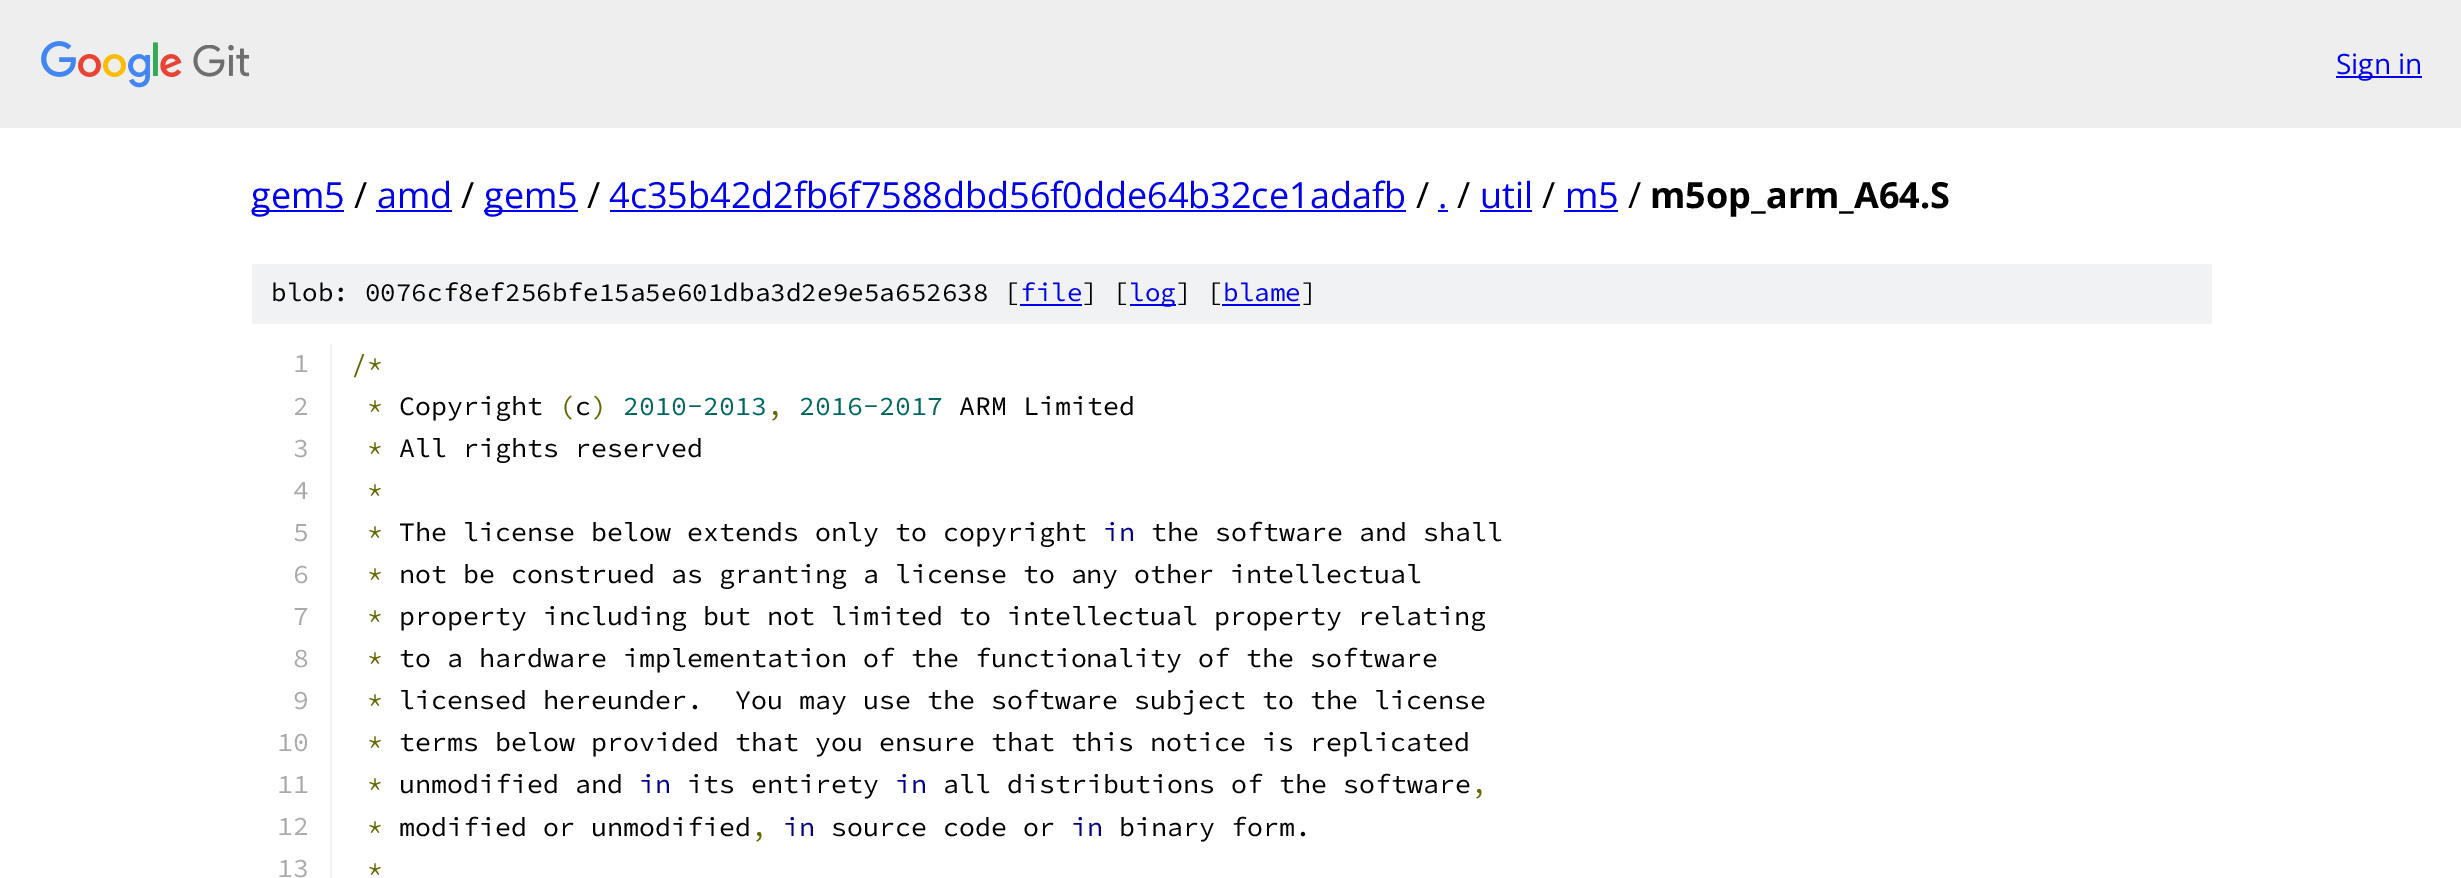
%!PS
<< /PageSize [2461 878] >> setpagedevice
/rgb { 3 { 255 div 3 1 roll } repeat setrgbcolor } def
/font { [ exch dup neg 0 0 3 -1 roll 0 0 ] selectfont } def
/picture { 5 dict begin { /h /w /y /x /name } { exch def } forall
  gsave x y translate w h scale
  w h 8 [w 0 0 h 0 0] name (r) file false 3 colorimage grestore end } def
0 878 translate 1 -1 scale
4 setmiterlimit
255 255 255 rgb
0 0 2461 878 rectfill
238 238 238 rgb
0 0 2461 128 rectfill
(img/1.rgb) 41 41 208 47 picture
[
  [2336 76 86 2 0 0 238]
  [252 210 92 2 0 0 238]
  [376 210 76 2 0 0 238]
  [484 210 94 2 0 0 238]
  [610 210 796 2 0 0 238]
  [1438 210 10 2 0 0 238]
  [1480 210 52 2 0 0 238]
  [1564 210 54 2 0 0 238]
  [252 264 1960 60 241 242 243]
  [1020 304 62 2 0 0 238]
  [1130 304 46 2 0 0 238]
  [1222 304 78 2 0 0 238]
  [330 344 2 534 241 242 243]
] { aload pop rgb rectfill } forall
/OpenSans-Regular 28 font
0 0 238 rgb
2336 74 moveto (Sign in) show
/OpenSans-Regular 36 font
251 208 moveto (gem5) show
0 0 0 rgb
354 208 moveto (/) show
0 0 238 rgb
377 208 moveto (amd) show
0 0 0 rgb
461 208 moveto (/) show
0 0 238 rgb
484 208 moveto (gem5) show
0 0 0 rgb
587 208 moveto (/) show
0 0 238 rgb
609 208 moveto (4c35b42d2fb6f7588dbd56f0dde64b32ce1adafb) show
0 0 0 rgb
1416 208 moveto (/) show
0 0 238 rgb
1438 208 moveto (.) show
0 0 0 rgb
1457 208 moveto (/) show
0 0 238 rgb
1480 208 moveto (util) show
0 0 0 rgb
1542 208 moveto (/) show
0 0 238 rgb
1565 208 moveto (m5) show
0 0 0 rgb
1628 208 moveto (/) show
/OpenSans-Bold 36 font
1650 208 moveto (m5op_arm_A64.S) show
/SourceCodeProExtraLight-ExtraLight 26 font
271 301 moveto (blob: 0076cf8ef256bfe15a5e601dba3d2e9e5a652638 [) show
0 0 238 rgb
1020 301 moveto (file) show
0 0 0 rgb
1082 301 moveto (] [) show
0 0 238 rgb
1129 301 moveto (log) show
0 0 0 rgb
1176 301 moveto (] [) show
0 0 238 rgb
1223 301 moveto (blame) show
0 0 0 rgb
1301 301 moveto (]) show
/SourceCodeProExtraLight-ExtraLight 26.65 font
170 170 170 rgb
293 372 moveto (1) show
102 102 0 rgb
351 373 moveto (/*) show
170 170 170 rgb
293 415 moveto (2) show
102 102 0 rgb
367 415 moveto (*) show
0 0 0 rgb
399 415 moveto (Copyright) show
102 102 0 rgb
559 415 moveto (\( \)) show
0 102 102 rgb
623 415 moveto (2010-2013) show
799 415 moveto (2016-2017) show
0 0 0 rgb
959 415 moveto (ARM Limited) show
575 415 moveto (c) show
102 102 0 rgb
767 415 moveto (,) show
170 170 170 rgb
293 457 moveto (3) show
102 102 0 rgb
367 457 moveto (*) show
0 0 0 rgb
399 457 moveto (All rights reserved) show
170 170 170 rgb
293 499 moveto (4) show
102 102 0 rgb
367 499 moveto (*) show
170 170 170 rgb
293 541 moveto (5) show
102 102 0 rgb
367 541 moveto (*) show
0 0 0 rgb
399 541 moveto (The license below extends only to copyright) show
0 0 136 rgb
1103 541 moveto (in) show
0 0 0 rgb
1151 541 moveto (the software and shall) show
170 170 170 rgb
293 583 moveto (6) show
102 102 0 rgb
367 583 moveto (*) show
0 0 0 rgb
399 583 moveto (not be construed as granting a license to any other intellectual) show
170 170 170 rgb
293 625 moveto (7) show
102 102 0 rgb
367 625 moveto (*) show
0 0 0 rgb
399 625 moveto (property including but not limited to intellectual property relating) show
170 170 170 rgb
293 667 moveto (8) show
102 102 0 rgb
367 667 moveto (*) show
0 0 0 rgb
399 667 moveto (to a hardware implementation of the functionality of the software) show
170 170 170 rgb
293 709 moveto (9) show
102 102 0 rgb
367 709 moveto (*) show
0 0 0 rgb
399 709 moveto (licensed hereunder.  You may use the software subject to the license) show
170 170 170 rgb
277 751 moveto (10) show
102 102 0 rgb
367 751 moveto (*) show
0 0 0 rgb
399 751 moveto (terms below provided that you ensure that this notice is replicated) show
170 170 170 rgb
277 793 moveto (11) show
102 102 0 rgb
367 793 moveto (*) show
0 0 0 rgb
399 793 moveto (unmodified and) show
0 0 136 rgb
639 793 moveto (in) show
0 0 0 rgb
687 793 moveto (its entirety) show
0 0 136 rgb
895 793 moveto (in) show
0 0 0 rgb
943 793 moveto (all distributions of the software) show
102 102 0 rgb
1471 793 moveto (,) show
170 170 170 rgb
277 835 moveto (12) show
102 102 0 rgb
367 836 moveto (*) show
0 0 0 rgb
399 836 moveto (modified or unmodified) show
0 0 136 rgb
783 836 moveto (in) show
0 0 0 rgb
831 836 moveto (source code or) show
0 0 136 rgb
1071 836 moveto (in) show
0 0 0 rgb
1119 836 moveto (binary form.) show
102 102 0 rgb
751 836 moveto (,) show
170 170 170 rgb
277 877 moveto (13) show
102 102 0 rgb
367 878 moveto (*) show
showpage
